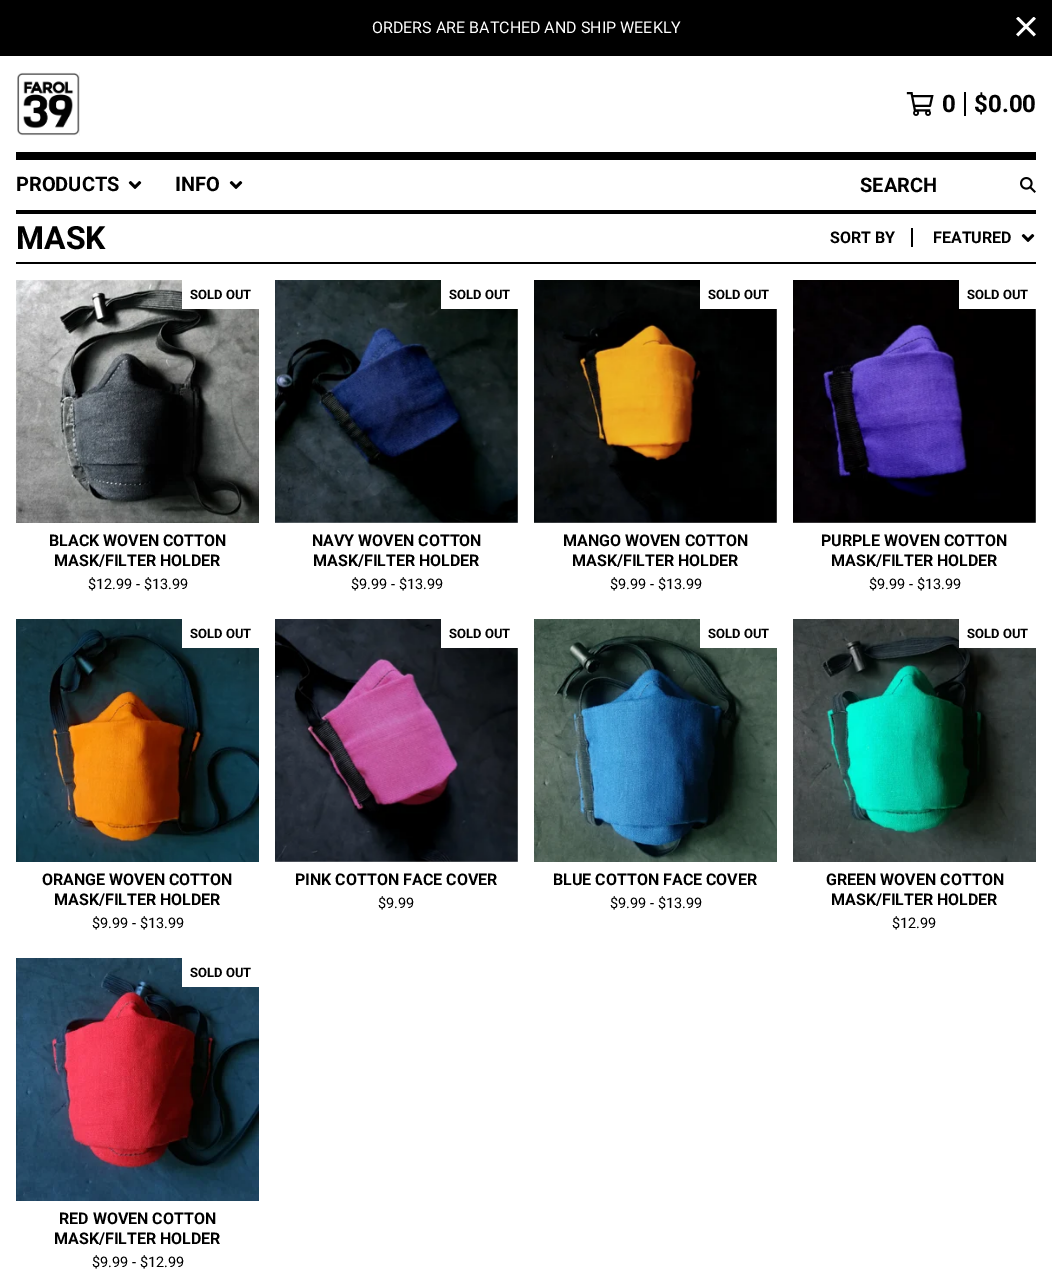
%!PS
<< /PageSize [1052 1270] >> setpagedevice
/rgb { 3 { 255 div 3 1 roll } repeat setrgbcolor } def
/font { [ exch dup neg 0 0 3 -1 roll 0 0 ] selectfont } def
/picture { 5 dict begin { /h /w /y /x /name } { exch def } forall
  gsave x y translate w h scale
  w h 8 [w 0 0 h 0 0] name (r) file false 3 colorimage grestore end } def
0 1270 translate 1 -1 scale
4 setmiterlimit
255 255 255 rgb
0 0 1052 1270 rectfill
0 0 0 rgb
0 0 1052 56 rectfill
(img/1.rgb) 1016 17 20 20 picture
16 152 1020 8 rectfill
(img/2.rgb) 17 72 63 64 picture
(img/3.rgb) 906 92 28 24 picture
964 92 2 24 rectfill
16 210 1020 4 rectfill
(img/4.rgb) 128 181 14 8 picture
(img/4.rgb) 229 181 14 8 picture
(img/5.rgb) 1020 177 16 16 picture
16 262 1020 2 rectfill
911 228 2 19 rectfill
(img/4.rgb) 1021 234 14 8 picture
(img/6.rgb) 16 280 243 243 picture
255 255 255 rgb
182 280 77 29 rectfill
(img/7.rgb) 275 280 243 243 picture
441 280 77 29 rectfill
(img/8.rgb) 534 280 243 243 picture
700 280 77 29 rectfill
(img/9.rgb) 793 280 243 243 picture
959 280 77 29 rectfill
(img/10.rgb) 16 619 243 243 picture
182 619 77 29 rectfill
(img/11.rgb) 275 619 243 243 picture
441 619 77 29 rectfill
(img/12.rgb) 534 619 243 243 picture
700 619 77 29 rectfill
(img/13.rgb) 793 619 243 243 picture
959 619 77 29 rectfill
(img/14.rgb) 16 958 243 243 picture
182 958 77 29 rectfill
/Roboto-Regular 16 font
372 33 moveto (ORDERS ARE BATCHED AND SHIP WEEKLY) show
/Roboto-Bold 24 font
0 0 0 rgb
942 112 moveto (0) show
974 112 moveto ($0.00) show
/Roboto-Bold 20 font
[
  [(PRODUCTS) 16 191]
  [(INFO) 175 191]
  [(SEARCH) 860 192]
] { aload pop moveto show } forall
/Roboto-Bold 32 font
16 249 moveto (MASK) show
/Roboto-Bold 16 font
830 243 moveto (SORT BY) show
933 243 moveto (FEATURED) show
/Roboto-Bold 13 font
190 299 moveto (SOLD OUT) show
/Roboto-Bold 16 font
49 546 moveto (BLACK WOVEN COTTON) show
54 566 moveto (MASK/FILTER HOLDER) show
/Roboto-Regular 14.5 font
88 589 moveto ($12.99 - $13.99) show
/Roboto-Bold 13 font
449 299 moveto (SOLD OUT) show
/Roboto-Bold 16 font
312 546 moveto (NAVY WOVEN COTTON) show
313 566 moveto (MASK/FILTER HOLDER) show
/Roboto-Regular 14.5 font
351 589 moveto ($9.99 - $13.99) show
/Roboto-Bold 13 font
708 299 moveto (SOLD OUT) show
/Roboto-Bold 16 font
563 546 moveto (MANGO WOVEN COTTON) show
572 566 moveto (MASK/FILTER HOLDER) show
/Roboto-Regular 14.5 font
610 589 moveto ($9.99 - $13.99) show
/Roboto-Bold 13 font
967 299 moveto (SOLD OUT) show
/Roboto-Bold 16 font
821 546 moveto (PURPLE WOVEN COTTON) show
831 566 moveto (MASK/FILTER HOLDER) show
/Roboto-Regular 14.5 font
869 589 moveto ($9.99 - $13.99) show
/Roboto-Bold 13 font
190 638 moveto (SOLD OUT) show
/Roboto-Bold 16 font
42 885 moveto (ORANGE WOVEN COTTON) show
54 905 moveto (MASK/FILTER HOLDER) show
/Roboto-Regular 14.5 font
92 928 moveto ($9.99 - $13.99) show
/Roboto-Bold 13 font
449 638 moveto (SOLD OUT) show
/Roboto-Bold 16 font
295 885 moveto (PINK COTTON FACE COVER) show
/Roboto-Regular 14.5 font
378 908 moveto ($9.99) show
/Roboto-Bold 13 font
708 638 moveto (SOLD OUT) show
/Roboto-Bold 16 font
553 885 moveto (BLUE COTTON FACE COVER) show
/Roboto-Regular 14.5 font
610 908 moveto ($9.99 - $13.99) show
/Roboto-Bold 13 font
967 638 moveto (SOLD OUT) show
/Roboto-Bold 16 font
826 885 moveto (GREEN WOVEN COTTON) show
831 905 moveto (MASK/FILTER HOLDER) show
/Roboto-Regular 14.5 font
892 928 moveto ($12.99) show
/Roboto-Bold 13 font
190 977 moveto (SOLD OUT) show
/Roboto-Bold 16 font
59 1224 moveto (RED WOVEN COTTON) show
54 1244 moveto (MASK/FILTER HOLDER) show
/Roboto-Regular 14.5 font
92 1267 moveto ($9.99 - $12.99) show
showpage
